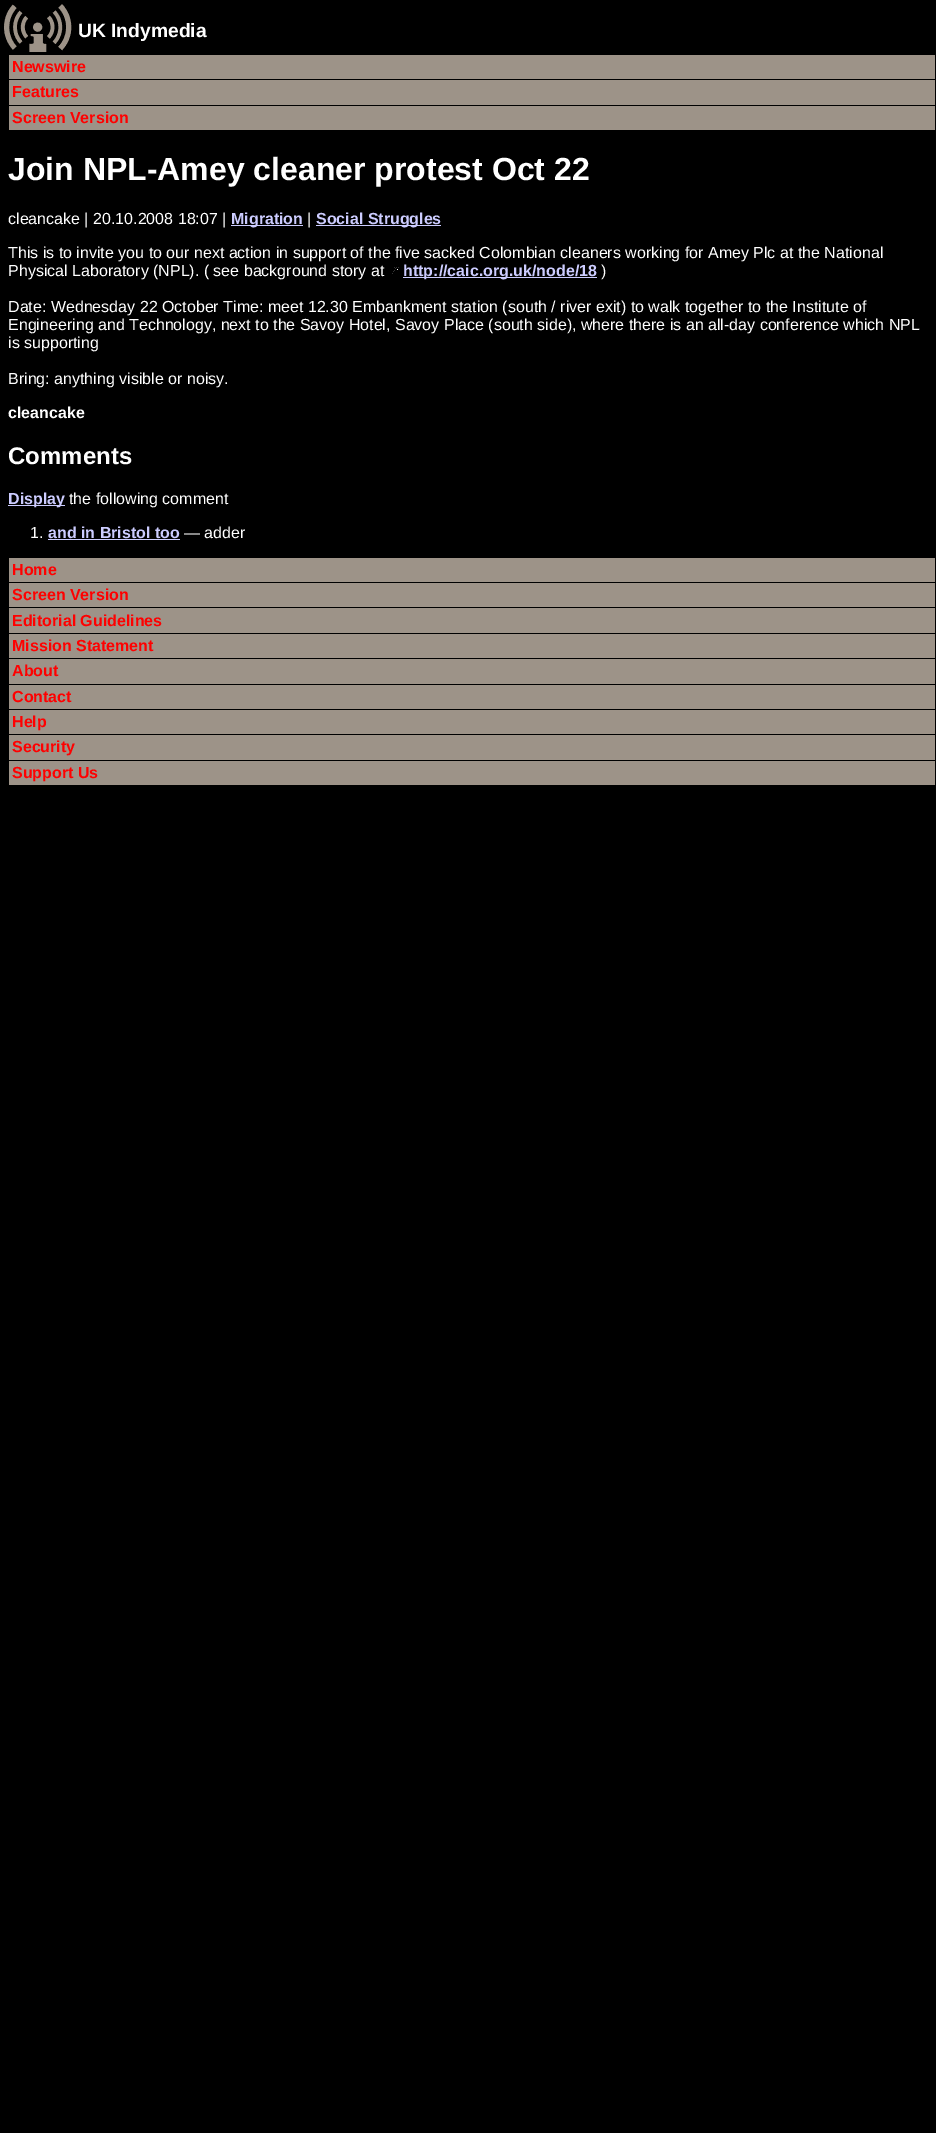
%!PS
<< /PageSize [936 2133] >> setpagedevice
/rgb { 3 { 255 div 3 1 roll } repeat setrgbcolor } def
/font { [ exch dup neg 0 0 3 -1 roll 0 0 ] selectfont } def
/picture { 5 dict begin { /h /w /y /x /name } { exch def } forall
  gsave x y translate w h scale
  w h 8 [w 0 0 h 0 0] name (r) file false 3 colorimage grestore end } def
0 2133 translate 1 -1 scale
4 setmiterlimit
0 0 0 rgb
0 0 936 2133 rectfill
(img/1.rgb) 4 4 68 48 picture
[
  [9 55 926 24 157 147 136]
  [9 80 926 25 157 147 136]
  [9 106 926 24 157 147 136]
  [231 225 72 1 204 204 255]
  [316 225 125 1 204 204 255]
] { aload pop rgb rectfill } forall
(img/2.rgb) 392 267 7 7 picture
[
  [403 277 194 1 204 204 255]
  [8 505 57 1 204 204 255]
  [48 539 132 1 204 204 255]
  [9 558 926 24 157 147 136]
  [9 583 926 24 157 147 136]
  [9 608 926 25 157 147 136]
  [9 634 926 24 157 147 136]
  [9 659 926 25 157 147 136]
  [9 685 926 24 157 147 136]
  [9 710 926 24 157 147 136]
  [9 735 926 25 157 147 136]
  [9 761 926 24 157 147 136]
] { aload pop rgb rectfill } forall
/LiberationSans-Bold 19.25 font
255 255 255 rgb
78 37 moveto (UK Indymedia) show
/LiberationSans-Bold 16 font
255 0 0 rgb
[
  [(Newswire) 12 72]
  [(Features) 12 97]
  [(Screen Version) 12 123]
] { aload pop moveto show } forall
/LiberationSans-Bold 32 font
255 255 255 rgb
8 180 moveto (Join NPL-Amey cleaner protest Oct 22) show
/LiberationSans-Regular 16 font
8 224 moveto (cleancake | 20.10.2008 18:07 |) show
/LiberationSans-Bold 16 font
204 204 255 rgb
231 224 moveto (Migration) show
/LiberationSans-Regular 16 font
255 255 255 rgb
307 224 moveto (|) show
/LiberationSans-Bold 16 font
204 204 255 rgb
316 224 moveto (Social Struggles) show
/LiberationSans-Regular 16 font
255 255 255 rgb
8 258 moveto (This is to invite you to our next action in support of the five sacked Colombian cleaners working for Amey Plc at the National) show
8 276 moveto (Physical Laboratory \(NPL\). \( see background story at) show
/LiberationSans-Bold 16 font
204 204 255 rgb
403 276 moveto (http://caic.org.uk/node/18) show
/LiberationSans-Regular 16 font
255 255 255 rgb
[
  [(\)) 601 276]
  [(Date: Wednesday 22 October Time: meet 12.30 Embankment station \(south / river exit\) to walk together to the Institute of) 8 312]
  [(Engineering and Technology, next to the Savoy Hotel, Savoy Place \(south side\), where there is an all-day conference which NPL) 8 330]
  [(is supporting) 8 348]
  [(Bring: anything visible or noisy.) 8 384]
] { aload pop moveto show } forall
/LiberationSans-Bold 16 font
8 418 moveto (cleancake) show
/LiberationSans-Bold 24 font
8 464 moveto (Comments) show
/LiberationSans-Bold 16 font
204 204 255 rgb
8 504 moveto (Display) show
/LiberationSans-Regular 16 font
255 255 255 rgb
69 504 moveto (the following comment) show
30 538 moveto (1.) show
/LiberationSans-Bold 16 font
204 204 255 rgb
48 538 moveto (and in Bristol too) show
/LiberationSans-Regular 16 font
255 255 255 rgb
184 538 moveto (— adder) show
/LiberationSans-Bold 16 font
255 0 0 rgb
[
  [(Home) 12 575]
  [(Screen Version) 12 600]
  [(Editorial Guidelines) 12 626]
  [(Mission Statement) 12 651]
  [(About) 12 676]
  [(Contact) 12 702]
  [(Help) 12 727]
  [(Security) 12 752]
  [(Support Us) 12 778]
] { aload pop moveto show } forall
showpage
